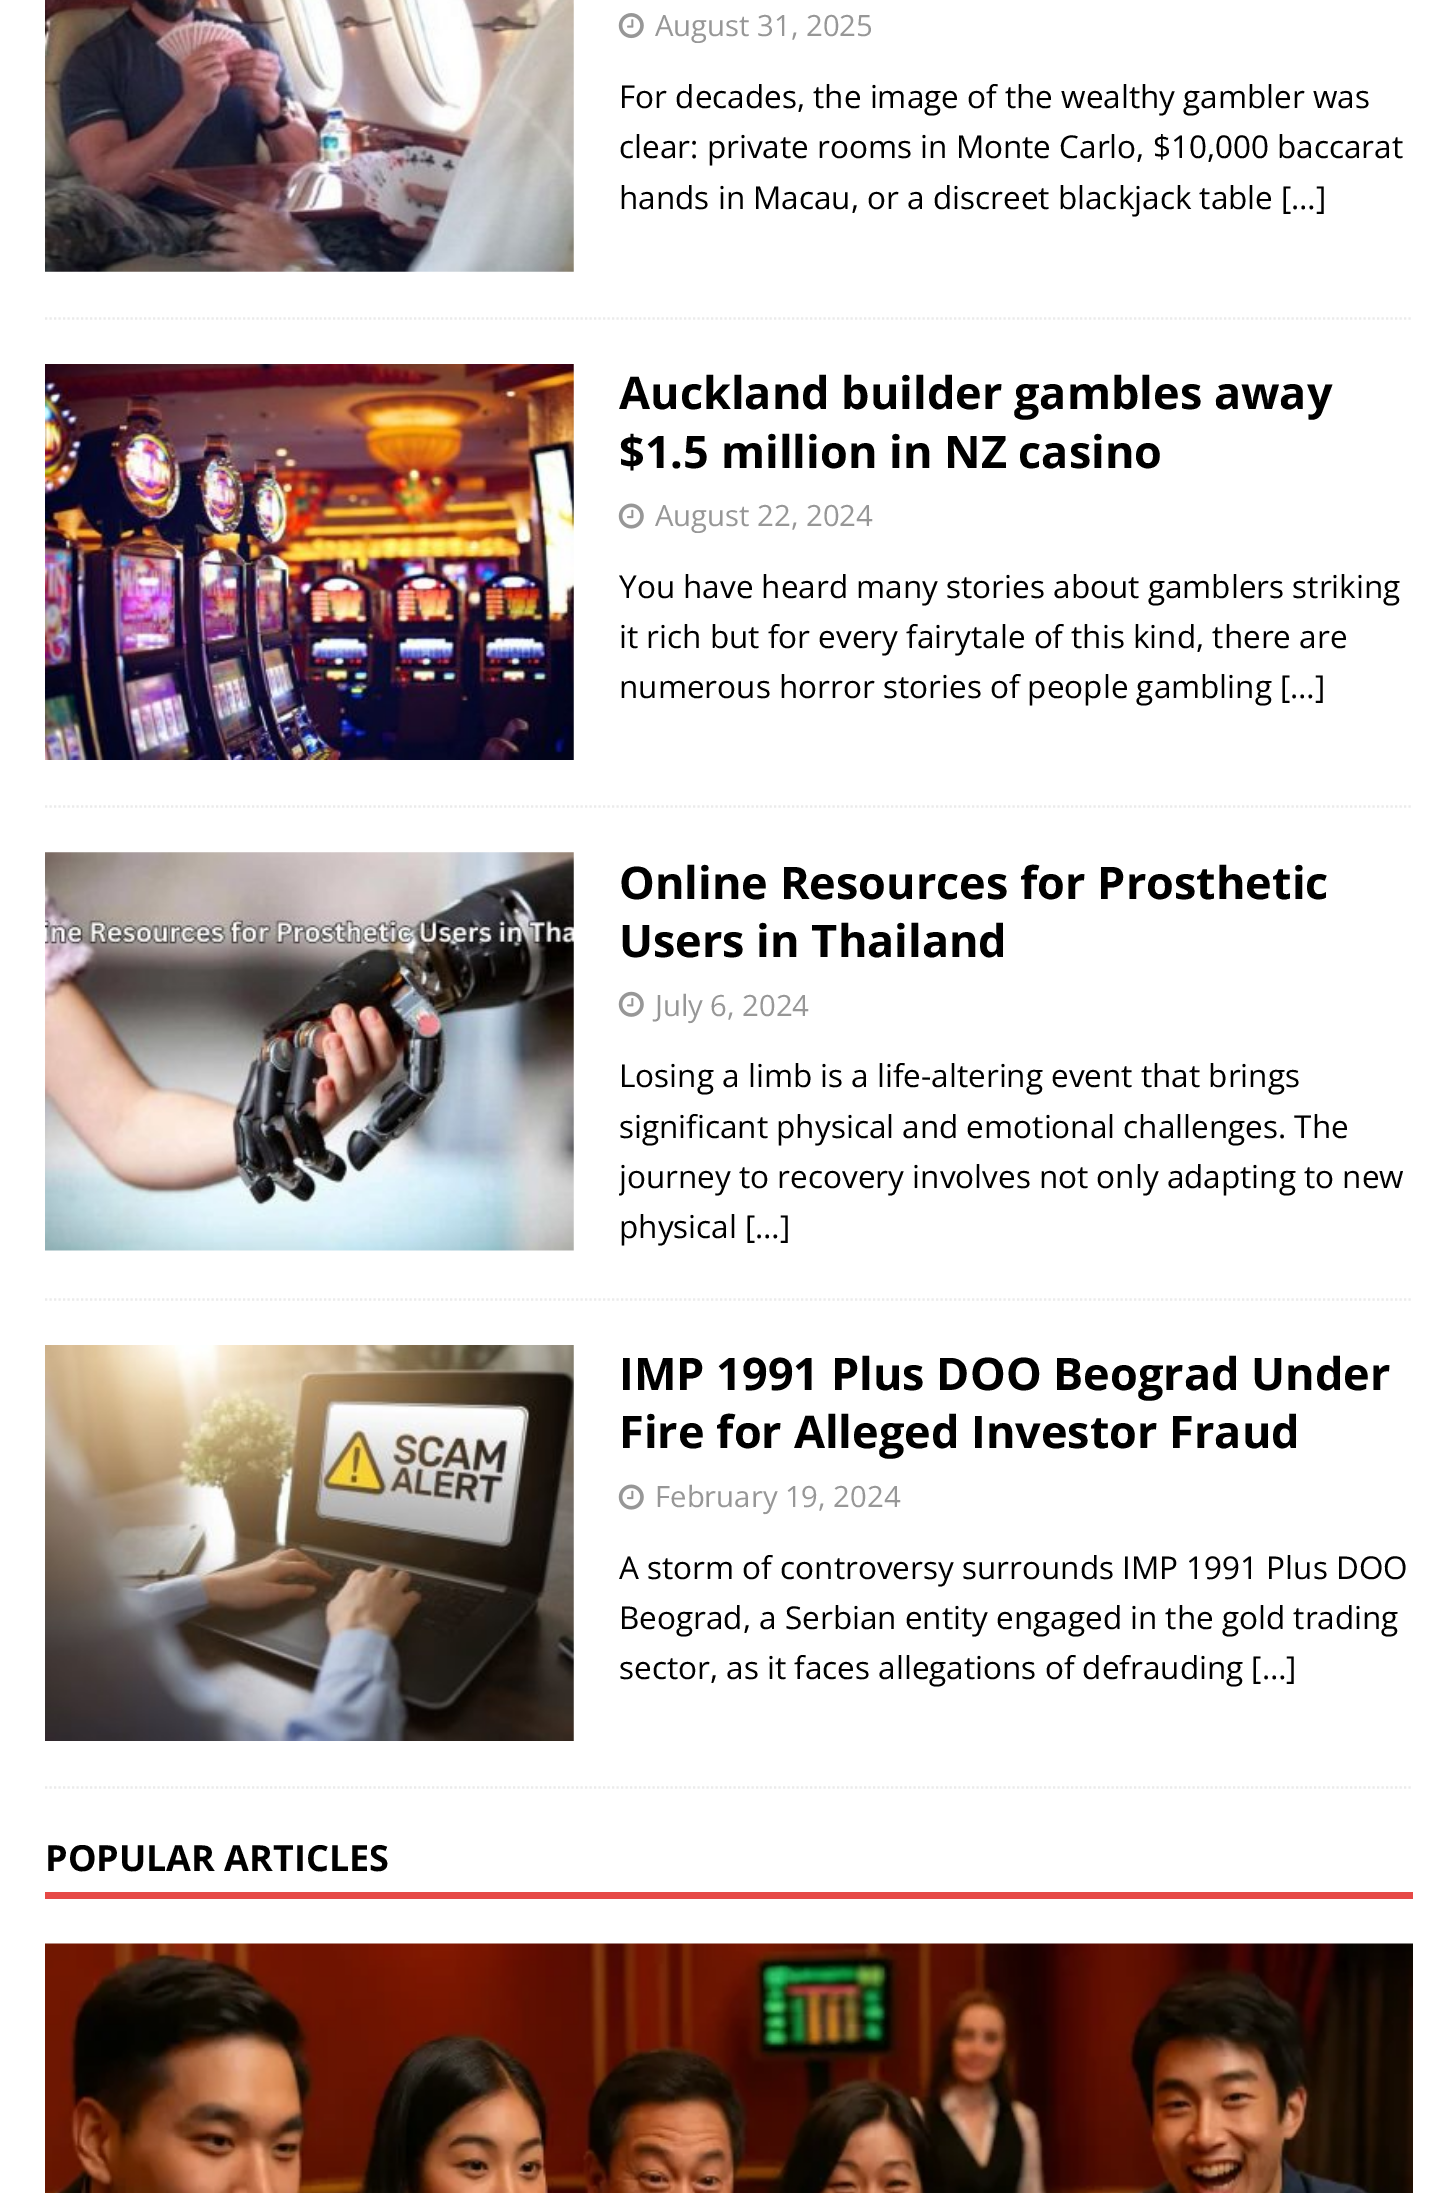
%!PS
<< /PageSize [1456 2193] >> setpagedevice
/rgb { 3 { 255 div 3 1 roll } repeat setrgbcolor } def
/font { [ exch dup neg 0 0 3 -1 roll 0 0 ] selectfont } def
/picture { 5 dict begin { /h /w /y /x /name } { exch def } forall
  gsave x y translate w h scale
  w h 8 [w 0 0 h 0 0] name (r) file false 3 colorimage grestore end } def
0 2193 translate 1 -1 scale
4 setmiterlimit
255 255 255 rgb
0 0 1456 2193 rectfill
235 235 235 rgb
2.2 setlinewidth
[2.25 2.25] 0 setdash
45 318.5 moveto 1413 318.5 lineto stroke
(img/1.rgb) 45 0 529 272 picture
(img/2.rgb) 618 13 26 26 picture
45 806.5 moveto 1413 806.5 lineto stroke
(img/3.rgb) 45 364 529 396 picture
(img/4.rgb) 618 503 26 26 picture
45 1299.5 moveto 1413 1299.5 lineto stroke
(img/5.rgb) 45 852 529 399 picture
(img/6.rgb) 618 991 26 26 picture
45 1787.5 moveto 1413 1787.5 lineto stroke
(img/7.rgb) 45 1345 529 396 picture
(img/4.rgb) 618 1484 26 26 picture
230 73 70 rgb
45 1892 1368 7 rectfill
(img/8.rgb) 45 1943 1368 250 picture
/OpenSans-Regular 29.25 font
151 151 151 rgb
655 36 moveto (August 31, 2025) show
/OpenSans-Regular 31.5 font
0 0 0 rgb
[
  [(For decades, the image of the wealthy gambler was) 619 108]
  [(clear: private rooms in Monte Carlo, $10,000 baccarat) 619 158]
  [(hands in Macau, or a discreet blackjack table […]) 619 209]
] { aload pop moveto show } forall
/OpenSans-Bold 45 font
619 409 moveto (Auckland builder gambles away) show
619 468 moveto ($1.5 million in NZ casino) show
/OpenSans-Regular 29.25 font
151 151 151 rgb
655 526 moveto (August 22, 2024) show
/OpenSans-Regular 31.5 font
0 0 0 rgb
[
  [(You have heard many stories about gamblers striking) 619 598]
  [(it rich but for every fairytale of this kind, there are) 619 648]
  [(numerous horror stories of people gambling […]) 619 698]
] { aload pop moveto show } forall
/OpenSans-Bold 45 font
619 899 moveto (Online Resources for Prosthetic) show
619 957 moveto (Users in Thailand) show
/OpenSans-Regular 29.25 font
151 151 151 rgb
655 1016 moveto (July 6, 2024) show
/OpenSans-Regular 31.5 font
0 0 0 rgb
619 1087 moveto (Losing a limb is a life-altering event that brings) show
619 1138 moveto (significant physical and emotional challenges. The) show
gsave
619 1051 794 202 rectclip
619 1188 moveto (journey to recovery involves not only adapting to new) show
grestore
619 1238 moveto (physical […]) show
/OpenSans-Bold 45 font
619 1390 moveto (IMP 1991 Plus DOO Beograd Under) show
619 1448 moveto (Fire for Alleged Investor Fraud) show
/OpenSans-Regular 29.25 font
151 151 151 rgb
655 1507 moveto (February 19, 2024) show
/OpenSans-Regular 31.5 font
0 0 0 rgb
[
  [(A storm of controversy surrounds IMP 1991 Plus DOO) 619 1579]
  [(Beograd, a Serbian entity engaged in the gold trading) 619 1629]
  [(sector, as it faces allegations of defrauding […]) 619 1679]
] { aload pop moveto show } forall
/OpenSans-Bold 36 font
45 1871 moveto (POPULAR ARTICLES) show
showpage
